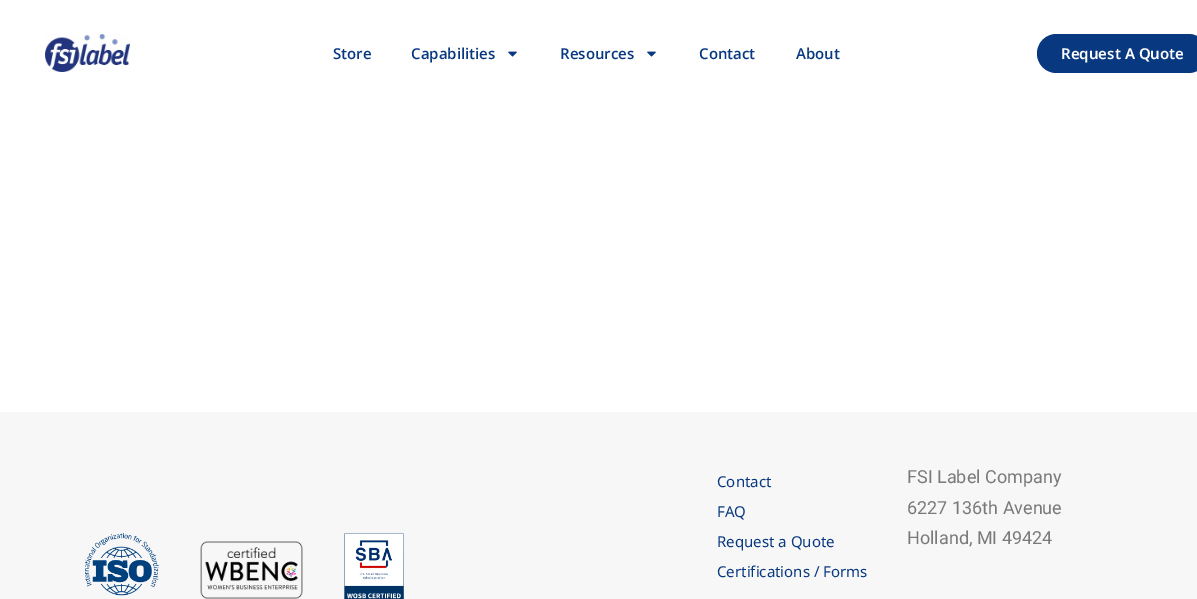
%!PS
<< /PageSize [1197 599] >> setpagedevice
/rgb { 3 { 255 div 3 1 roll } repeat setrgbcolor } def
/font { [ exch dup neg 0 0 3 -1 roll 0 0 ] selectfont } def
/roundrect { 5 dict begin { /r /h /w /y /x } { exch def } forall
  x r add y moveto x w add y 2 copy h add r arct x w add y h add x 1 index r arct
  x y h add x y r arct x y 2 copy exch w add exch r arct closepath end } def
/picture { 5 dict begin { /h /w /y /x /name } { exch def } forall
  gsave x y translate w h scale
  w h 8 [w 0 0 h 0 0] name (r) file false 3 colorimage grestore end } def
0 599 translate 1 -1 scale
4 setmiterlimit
255 255 255 rgb
0 0 1197 599 rectfill
(img/1.rgb) 45 34 85 38 picture
(img/2.rgb) 508 51 9 6 picture
(img/2.rgb) 647 51 9 6 picture
8 57 128 rgb
1037 34 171 39 19.5 roundrect fill
247 247 247 rgb
0 412 1197 187 rectfill
(img/3.rgb) 85 533 74 63 picture
(img/4.rgb) 200 541 103 58 picture
(img/5.rgb) 344 533 60 66 picture
/OpenSans-SemiBold 15 font
8 57 128 rgb
[
  [(Store) 333 59]
  [(Capabilities) 411 59]
  [(Resources) 560 59]
  [(Contact) 699 59]
  [(About) 796 59]
] { aload pop moveto show } forall
/NotoSans-SemiBold 15 font
255 255 255 rgb
1061 59 moveto (Request A Quote) show
/NotoSans-Regular 15 font
8 57 128 rgb
[
  [(Contact) 717 487]
  [(FAQ) 717 517]
  [(Request a Quote) 717 547]
  [(Certifications / Forms) 717 577]
] { aload pop moveto show } forall
/Roboto-Regular 18 font
122 122 122 rgb
[
  [(FSI Label Company) 907 483]
  [(6227 136th Avenue) 907 514]
  [(Holland, MI 49424) 907 544]
] { aload pop moveto show } forall
showpage
